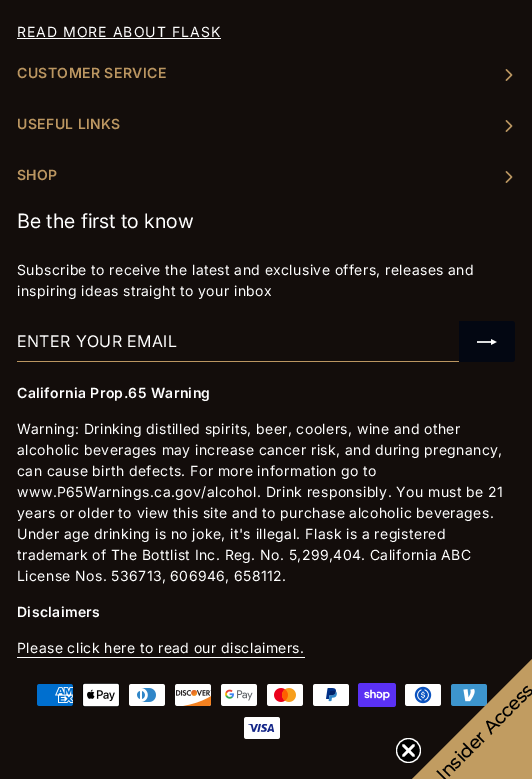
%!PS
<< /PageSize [532 779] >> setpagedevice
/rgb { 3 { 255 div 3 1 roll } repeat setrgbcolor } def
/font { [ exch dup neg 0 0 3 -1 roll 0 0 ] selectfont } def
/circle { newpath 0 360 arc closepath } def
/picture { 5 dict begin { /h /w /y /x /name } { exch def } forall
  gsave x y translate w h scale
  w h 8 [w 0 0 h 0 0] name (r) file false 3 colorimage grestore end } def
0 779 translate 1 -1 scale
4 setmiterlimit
19 13 11 rgb
0 0 532 779 rectfill
255 255 255 rgb
17 38 204 1 rectfill
(img/1.rgb) 505 69 8 12 picture
(img/1.rgb) 505 120 8 12 picture
(img/1.rgb) 505 171 8 12 picture
187 150 97 rgb
17 361 442 1 rectfill
3 7 18 rgb
459 321 moveto 512 321 lineto 513.5 321 515 322.5 515 324 curveto 515 359 lineto 515 360.5 513.5 362 512 362 curveto 459 362 lineto closepath fill
(img/2.rgb) 477 339 20 6 picture
255 255 255 rgb
17 657 288 1 rectfill
(img/3.rgb) 37 684 36 22 picture
(img/4.rgb) 82 683 38 24 picture
(img/5.rgb) 129 684 36 22 picture
(img/6.rgb) 175 684 36 22 picture
(img/7.rgb) 221 684 36 22 picture
(img/8.rgb) 267 684 36 22 picture
(img/9.rgb) 313 684 36 22 picture
(img/10.rgb) 358 683 38 24 picture
(img/11.rgb) 405 684 36 22 picture
(img/12.rgb) 451 684 36 22 picture
(img/13.rgb) 244 717 36 22 picture
193 156 97 rgb
412 779 moveto 532 779 lineto 532 659 lineto closepath fill
0 0 0 rgb
408.5 750.5 12 circle fill
gsave
396 738 25 25 rectclip
255 255 255 rgb
1.2 setlinewidth
408.5 750.5 12 circle stroke
grestore
255 255 255 rgb
2.5 setlinewidth
1 setlinecap
1 setlinejoin
403.5 745.5 moveto 413.5 755.5 lineto 403.5 755.5 moveto 413.5 745.5 lineto closepath stroke
/inter-Regular 14 font
17 37 moveto 1 0 (READ MORE ABOUT FLASK) ashow
/inter-SemiBold 14 font
187 150 97 rgb
17 78 moveto 0.38 0 (CUSTOMER SERVICE) ashow
17 129 moveto 0.38 0 (USEFUL LINKS) ashow
17 180 moveto 0.38 0 (SHOP) ashow
/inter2-Regular 19.75 font
255 255 255 rgb
17 228 moveto (Be the first to know) show
/inter-Regular 14 font
17 275 moveto 0.38 0 (Subscribe to receive the latest and exclusive offers, releases and) ashow
17 296 moveto 0.38 0 (inspiring ideas straight to your inbox) ashow
/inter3-Regular 16 font
17 347 moveto 0.4 0 (ENTER YOUR EMAIL) ashow
/inter-SemiBold 14 font
17 398 moveto 0.38 0 (California Prop.65 Warning) ashow
/inter-Regular 14 font
17 434 moveto 0.38 0 (Warning: Drinking distilled spirits, beer, coolers, wine and other) ashow
17 455 moveto 0.38 0 (alcoholic beverages may increase cancer risk, and during pregnancy,) ashow
17 476 moveto 0.38 0 (can cause birth defects. For more information go to) ashow
17 497 moveto 0.38 0 (www.P65Warnings.ca.gov/alcohol. Drink responsibly. You must be 21) ashow
17 518 moveto 0.38 0 (years or older to view this site and to purchase alcoholic beverages.) ashow
17 539 moveto 0.38 0 (Under age drinking is no joke, it's illegal. Flask is a registered) ashow
17 560 moveto 0.38 0 (trademark of The Bottlist Inc. Reg. No. 5,299,404. California ABC) ashow
17 581 moveto 0.38 0 (License Nos. 536713, 606946, 658112.) ashow
/inter-SemiBold 14 font
17 617 moveto 0.38 0 (Disclaimers) ashow
/inter-Regular 14 font
17 653 moveto 0.38 0 (Please click here to read our disclaimers.) ashow
/Montserrat-Bold 18 font
0 0 0 rgb
gsave 444 782 translate -45 rotate 0 0 moveto (Insider Access) show grestore
showpage
